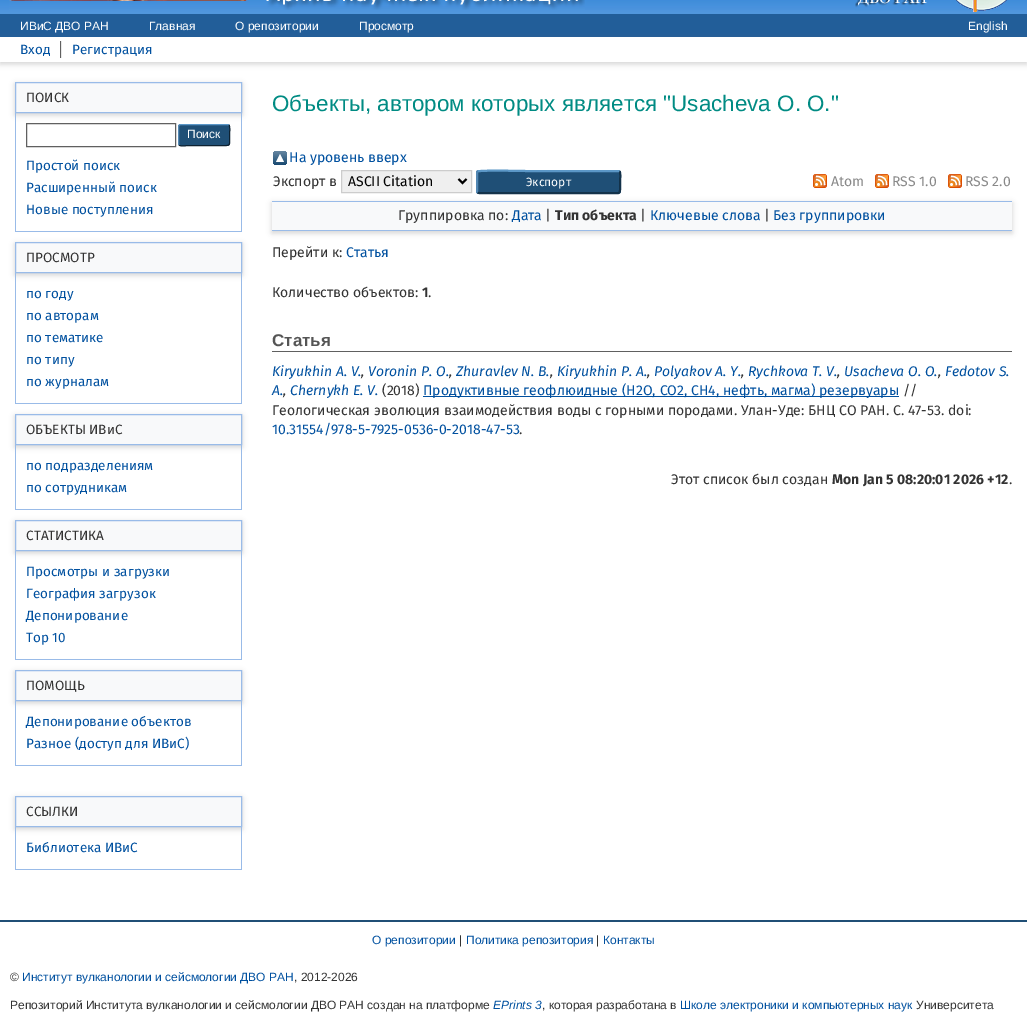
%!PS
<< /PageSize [1027 1013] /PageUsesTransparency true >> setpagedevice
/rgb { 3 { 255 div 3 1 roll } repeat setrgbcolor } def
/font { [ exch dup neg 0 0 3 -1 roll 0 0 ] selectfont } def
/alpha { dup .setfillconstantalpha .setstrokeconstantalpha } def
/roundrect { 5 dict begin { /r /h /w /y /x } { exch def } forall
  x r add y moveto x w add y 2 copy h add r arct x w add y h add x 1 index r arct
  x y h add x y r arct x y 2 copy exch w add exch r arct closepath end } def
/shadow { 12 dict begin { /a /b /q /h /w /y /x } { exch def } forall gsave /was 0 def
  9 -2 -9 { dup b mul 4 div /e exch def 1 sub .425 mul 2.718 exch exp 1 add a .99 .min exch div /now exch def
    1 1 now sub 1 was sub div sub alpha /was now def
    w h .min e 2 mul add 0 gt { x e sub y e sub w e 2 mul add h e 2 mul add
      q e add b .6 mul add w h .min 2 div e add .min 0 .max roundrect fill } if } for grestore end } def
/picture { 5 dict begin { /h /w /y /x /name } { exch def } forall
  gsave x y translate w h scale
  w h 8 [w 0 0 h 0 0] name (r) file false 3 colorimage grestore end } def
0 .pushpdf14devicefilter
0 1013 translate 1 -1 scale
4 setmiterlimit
255 255 255 rgb
0 0 1027 1013 rectfill
34 94 153 rgb
0 14 1027 23 rectfill
(img/1.rgb) 0 0 1027 14 picture
(img/2.rgb) 9 0 576 10 picture
(img/3.rgb) 855 0 152 13 picture
100 100 100 rgb
0 39 1027 25 0 3 0.3 shadow
[
  [1 36 433 1 34 94 153]
  [948 36 78 1 34 94 153]
  [0 37 1027 25 255 255 255]
  [60 41 1 17 96 96 96]
  [61 41 1 17 232 232 232]
] { aload pop rgb rectfill } forall
100 100 100 rgb
15 84 227 31 0 3 0.3 shadow
248 249 250 rgb
15.5 82.5 moveto 241.5 82.5 lineto 241.5 112.5 lineto 15.5 112.5 lineto closepath gsave fill grestore
153 187 232 rgb
stroke
[
  [241 113 1 119 153 187 232]
  [15 231 227 1 153 187 232]
  [15 113 1 119 153 187 232]
] { aload pop rgb rectfill } forall
96 96 96 rgb
26.5 123.5 149 23 rectstroke
31 79 118 rgb
178 124 52 22 3 roundrect fill
91 151 199 rgb
179 125 moveto 181 124.5 lineto 227 124.5 lineto 229 125 lineto stroke
13 33 49 rgb
229 125 moveto 230.5 127 229.5 133 229.5 135 curveto 229.5 147 231.5 145.5 219.5 145.5 curveto 188.5 145.5 lineto 185.5 145.5 181.5 147 179 145 curveto stroke
82 135 179 rgb
179 145 moveto 179 144.5 178.5 143.5 178.5 143 curveto 178.5 127 lineto 178.5 126.5 179 125.5 179 125 curveto stroke
100 100 100 rgb
15 244 227 31 0 3 0.3 shadow
248 249 250 rgb
15.5 242.5 moveto 241.5 242.5 lineto 241.5 272.5 lineto 15.5 272.5 lineto closepath gsave fill grestore
153 187 232 rgb
stroke
[
  [241 273 1 131 153 187 232]
  [15 403 227 1 153 187 232]
  [15 273 1 131 153 187 232]
] { aload pop rgb rectfill } forall
100 100 100 rgb
15 416 227 31 0 3 0.3 shadow
248 249 250 rgb
15.5 414.5 moveto 241.5 414.5 lineto 241.5 444.5 lineto 15.5 444.5 lineto closepath gsave fill grestore
153 187 232 rgb
stroke
[
  [241 445 1 65 153 187 232]
  [15 509 227 1 153 187 232]
  [15 445 1 65 153 187 232]
] { aload pop rgb rectfill } forall
100 100 100 rgb
15 522 227 31 0 3 0.3 shadow
248 249 250 rgb
15.5 520.5 moveto 241.5 520.5 lineto 241.5 550.5 lineto 15.5 550.5 lineto closepath gsave fill grestore
153 187 232 rgb
stroke
[
  [241 551 1 109 153 187 232]
  [15 659 227 1 153 187 232]
  [15 551 1 109 153 187 232]
] { aload pop rgb rectfill } forall
100 100 100 rgb
15 672 227 31 0 3 0.3 shadow
248 249 250 rgb
15.5 670.5 moveto 241.5 670.5 lineto 241.5 700.5 lineto 15.5 700.5 lineto closepath gsave fill grestore
153 187 232 rgb
stroke
[
  [241 701 1 65 153 187 232]
  [15 765 227 1 153 187 232]
  [15 701 1 65 153 187 232]
] { aload pop rgb rectfill } forall
100 100 100 rgb
15 798 227 31 0 3 0.3 shadow
248 249 250 rgb
15.5 796.5 moveto 241.5 796.5 lineto 241.5 826.5 lineto 15.5 826.5 lineto closepath gsave fill grestore
153 187 232 rgb
stroke
[
  [241 827 1 43 153 187 232]
  [15 869 227 1 153 187 232]
  [15 827 1 43 153 187 232]
] { aload pop rgb rectfill } forall
(img/4.rgb) 273 151 14 14 picture
239 239 239 rgb
341.5 170.5 moveto 471.5 170.5 lineto 471.5 192.5 lineto 341.5 192.5 lineto closepath gsave fill grestore
204 204 204 rgb
stroke
0 0 0 rgb
2 setlinewidth
458.5 179 moveto 462.5 183 lineto 466.5 179 lineto stroke
100 100 100 rgb
272 203 740 30 0 3 0.3 shadow
31 79 118 rgb
476 170 145 24 3 roundrect fill
91 151 199 rgb
477.5 171.5 moveto 479 170 522.5 171 525.5 171 curveto 618 171 lineto 619.5 171.5 lineto stroke
19 50 74 rgb
619.5 171.5 moveto 621 173 620 180 620 182 curveto 620 188 lineto 620 189.5 620.5 193 618 193 curveto 479 193 lineto 477.5 192.5 lineto stroke
82 135 179 rgb
477.5 192.5 moveto 477 192 477 191.5 477 191 curveto 477 173 lineto 477 172.5 477 172 477.5 171.5 curveto stroke
(img/5.rgb) 813 174 14 14 picture
(img/5.rgb) 875 174 14 14 picture
(img/5.rgb) 948 174 14 14 picture
[
  [272 202 740 28 248 249 250]
  [272 201 740 1 153 187 232]
  [272 230 740 1 153 187 232]
  [272 351 740 1 96 96 96]
  [423 396 476 1 0 80 159]
  [0 920 1027 2 32 79 118]
] { aload pop rgb rectfill } forall
/LiberationSans-Regular 12 font
255 255 255 rgb
[
  [(ИВиС ДВО РАН) 20 30]
  [(Главная) 149 30]
  [(О репозитории) 235 30]
  [(Просмотр) 359 30]
  [(English) 968 30]
] { aload pop moveto show } forall
/FiraSans-Regular 13.5 font
0 80 159 rgb
20 54 moveto (Вход) show
72 54 moveto (Регистрация) show
51 51 51 rgb
26 102 moveto (ПОИСК) show
/LiberationSans-Regular 12 font
255 255 255 rgb
187 138 moveto (Поиск) show
/FiraSans-Regular 13.5 font
0 80 159 rgb
[
  [(Простой поиск) 26 170]
  [(Расширенный поиск) 26 192]
  [(Новые поступления) 26 214]
] { aload pop moveto show } forall
51 51 51 rgb
26 262 moveto (ПРОСМОТР) show
0 80 159 rgb
[
  [(по году) 26 298]
  [(по авторам) 26 320]
  [(по тематике) 26 342]
  [(по типу) 26 364]
  [(по журналам) 26 386]
] { aload pop moveto show } forall
51 51 51 rgb
26 434 moveto (ОБЪЕКТЫ ИВиС) show
0 80 159 rgb
26 470 moveto (по подразделениям) show
26 492 moveto (по сотрудникам) show
51 51 51 rgb
26 540 moveto (СТАТИСТИКА) show
0 80 159 rgb
[
  [(Просмотры и загрузки) 26 576]
  [(География загрузок) 26 598]
  [(Депонирование) 26 620]
  [(Top 10) 26 642]
] { aload pop moveto show } forall
51 51 51 rgb
26 690 moveto (ПОМОЩЬ) show
0 80 159 rgb
26 726 moveto (Депонирование объектов) show
26 748 moveto (Разное \(доступ для ИВиС\)) show
51 51 51 rgb
26 816 moveto (ССЫЛКИ) show
0 80 159 rgb
26 852 moveto (Библиотека ИВиС) show
/LiberationSans-Regular 22.4 font
0 139 131 rgb
272 111 moveto (Объекты, автором которых является "Usacheva O. O.") show
/FiraSans-Regular 14 font
0 80 159 rgb
289 162 moveto (На уровень вверх) show
51 51 51 rgb
273 186 moveto (Экспорт в) show
0 0 0 rgb
348 186 moveto (ASCII Citation) show
/FiraSans-Regular 12 font
255 255 255 rgb
526 186 moveto (Экспорт) show
/FiraSans-Regular 14 font
136 136 136 rgb
[
  [(Atom) 831 186]
  [(RSS 1.0) 892 186]
  [(RSS 2.0) 965 186]
] { aload pop moveto show } forall
51 51 51 rgb
398 220 moveto (Группировка по:) show
0 80 159 rgb
512 220 moveto (Дата) show
51 51 51 rgb
545 220 moveto (|) show
/FiraSans-Bold 14 font
555 220 moveto (Тип объекта) show
/FiraSans-Regular 14 font
640 220 moveto (|) show
0 80 159 rgb
650 220 moveto (Ключевые слова) show
51 51 51 rgb
764 220 moveto (|) show
0 80 159 rgb
773 220 moveto (Без группировки) show
51 51 51 rgb
272 257 moveto (Перейти к:) show
0 80 159 rgb
346 257 moveto (Статья) show
51 51 51 rgb
272 297 moveto (Количество объектов:) show
/FiraSans-Bold 14 font
422 297 moveto (1) show
/FiraSans-Regular 14 font
428 297 moveto (.) show
/LiberationSans-Bold 17 font
85 85 85 rgb
272 346 moveto (Статья) show
/FiraSans-Italic 14 font
0 80 159 rgb
272 376 moveto (Kiryukhin A. V.) show
51 51 51 rgb
361 376 moveto (,) show
0 80 159 rgb
368 376 moveto (Voronin P. O.) show
51 51 51 rgb
449 376 moveto (,) show
0 80 159 rgb
456 376 moveto (Zhuravlev N. B.) show
51 51 51 rgb
550 376 moveto (,) show
0 80 159 rgb
557 376 moveto (Kiryukhin P. A.) show
51 51 51 rgb
647 376 moveto (,) show
0 80 159 rgb
654 376 moveto (Polyakov A. Y.) show
51 51 51 rgb
741 376 moveto (,) show
0 80 159 rgb
748 376 moveto (Rychkova T. V.) show
51 51 51 rgb
837 376 moveto (,) show
0 80 159 rgb
844 376 moveto (Usacheva O. O.) show
51 51 51 rgb
938 376 moveto (,) show
0 80 159 rgb
945 376 moveto (Fedotov S.) show
272 395 moveto (A.) show
51 51 51 rgb
283 395 moveto (,) show
0 80 159 rgb
290 395 moveto (Chernykh E. V.) show
/FiraSans-Regular 14 font
51 51 51 rgb
382 395 moveto (\(2018\)) show
0 80 159 rgb
423 395 moveto (Продуктивные геофлюидные \(H2O, CO2, CH4, нефть, магма\) резервуары) show
51 51 51 rgb
903 395 moveto (//) show
272 415 moveto (Геологическая эволюция взаимодействия воды с горными породами. Улан-Уде: БНЦ СО РАН. С. 47-53. doi:) show
0 80 159 rgb
272 434 moveto (10.31554/978-5-7925-0536-0-2018-47-53) show
51 51 51 rgb
519 434 moveto (.) show
671 484 moveto (Этот список был создан) show
/FiraSans-Bold 14 font
832 484 moveto (Mon Jan 5 08:20:01 2026 +12) show
/FiraSans-Regular 14 font
1009 484 moveto (.) show
/LiberationSans-Regular 12 font
0 80 159 rgb
372 944 moveto (О репозитории) show
51 51 51 rgb
459 944 moveto (|) show
0 80 159 rgb
466 944 moveto (Политика репозитория) show
51 51 51 rgb
596 944 moveto (|) show
0 80 159 rgb
603 944 moveto (Контакты) show
51 51 51 rgb
10 981 moveto (©) show
0 80 159 rgb
22 981 moveto (Институт вулканологии и сейсмологии ДВО РАН) show
51 51 51 rgb
294 981 moveto (, 2012-2026) show
10 1009 moveto (Репозиторий Института вулканологии и сейсмологии ДВО РАН создан на платформе) show
/LiberationSans-Italic 12 font
0 80 159 rgb
493 1009 moveto (EPrints 3) show
/LiberationSans-Regular 12 font
51 51 51 rgb
542 1009 moveto (, которая разработана в) show
0 80 159 rgb
680 1009 moveto (Школе электроники и компьютерных наук) show
51 51 51 rgb
916 1009 moveto (Университета) show
.poppdf14devicefilter showpage
